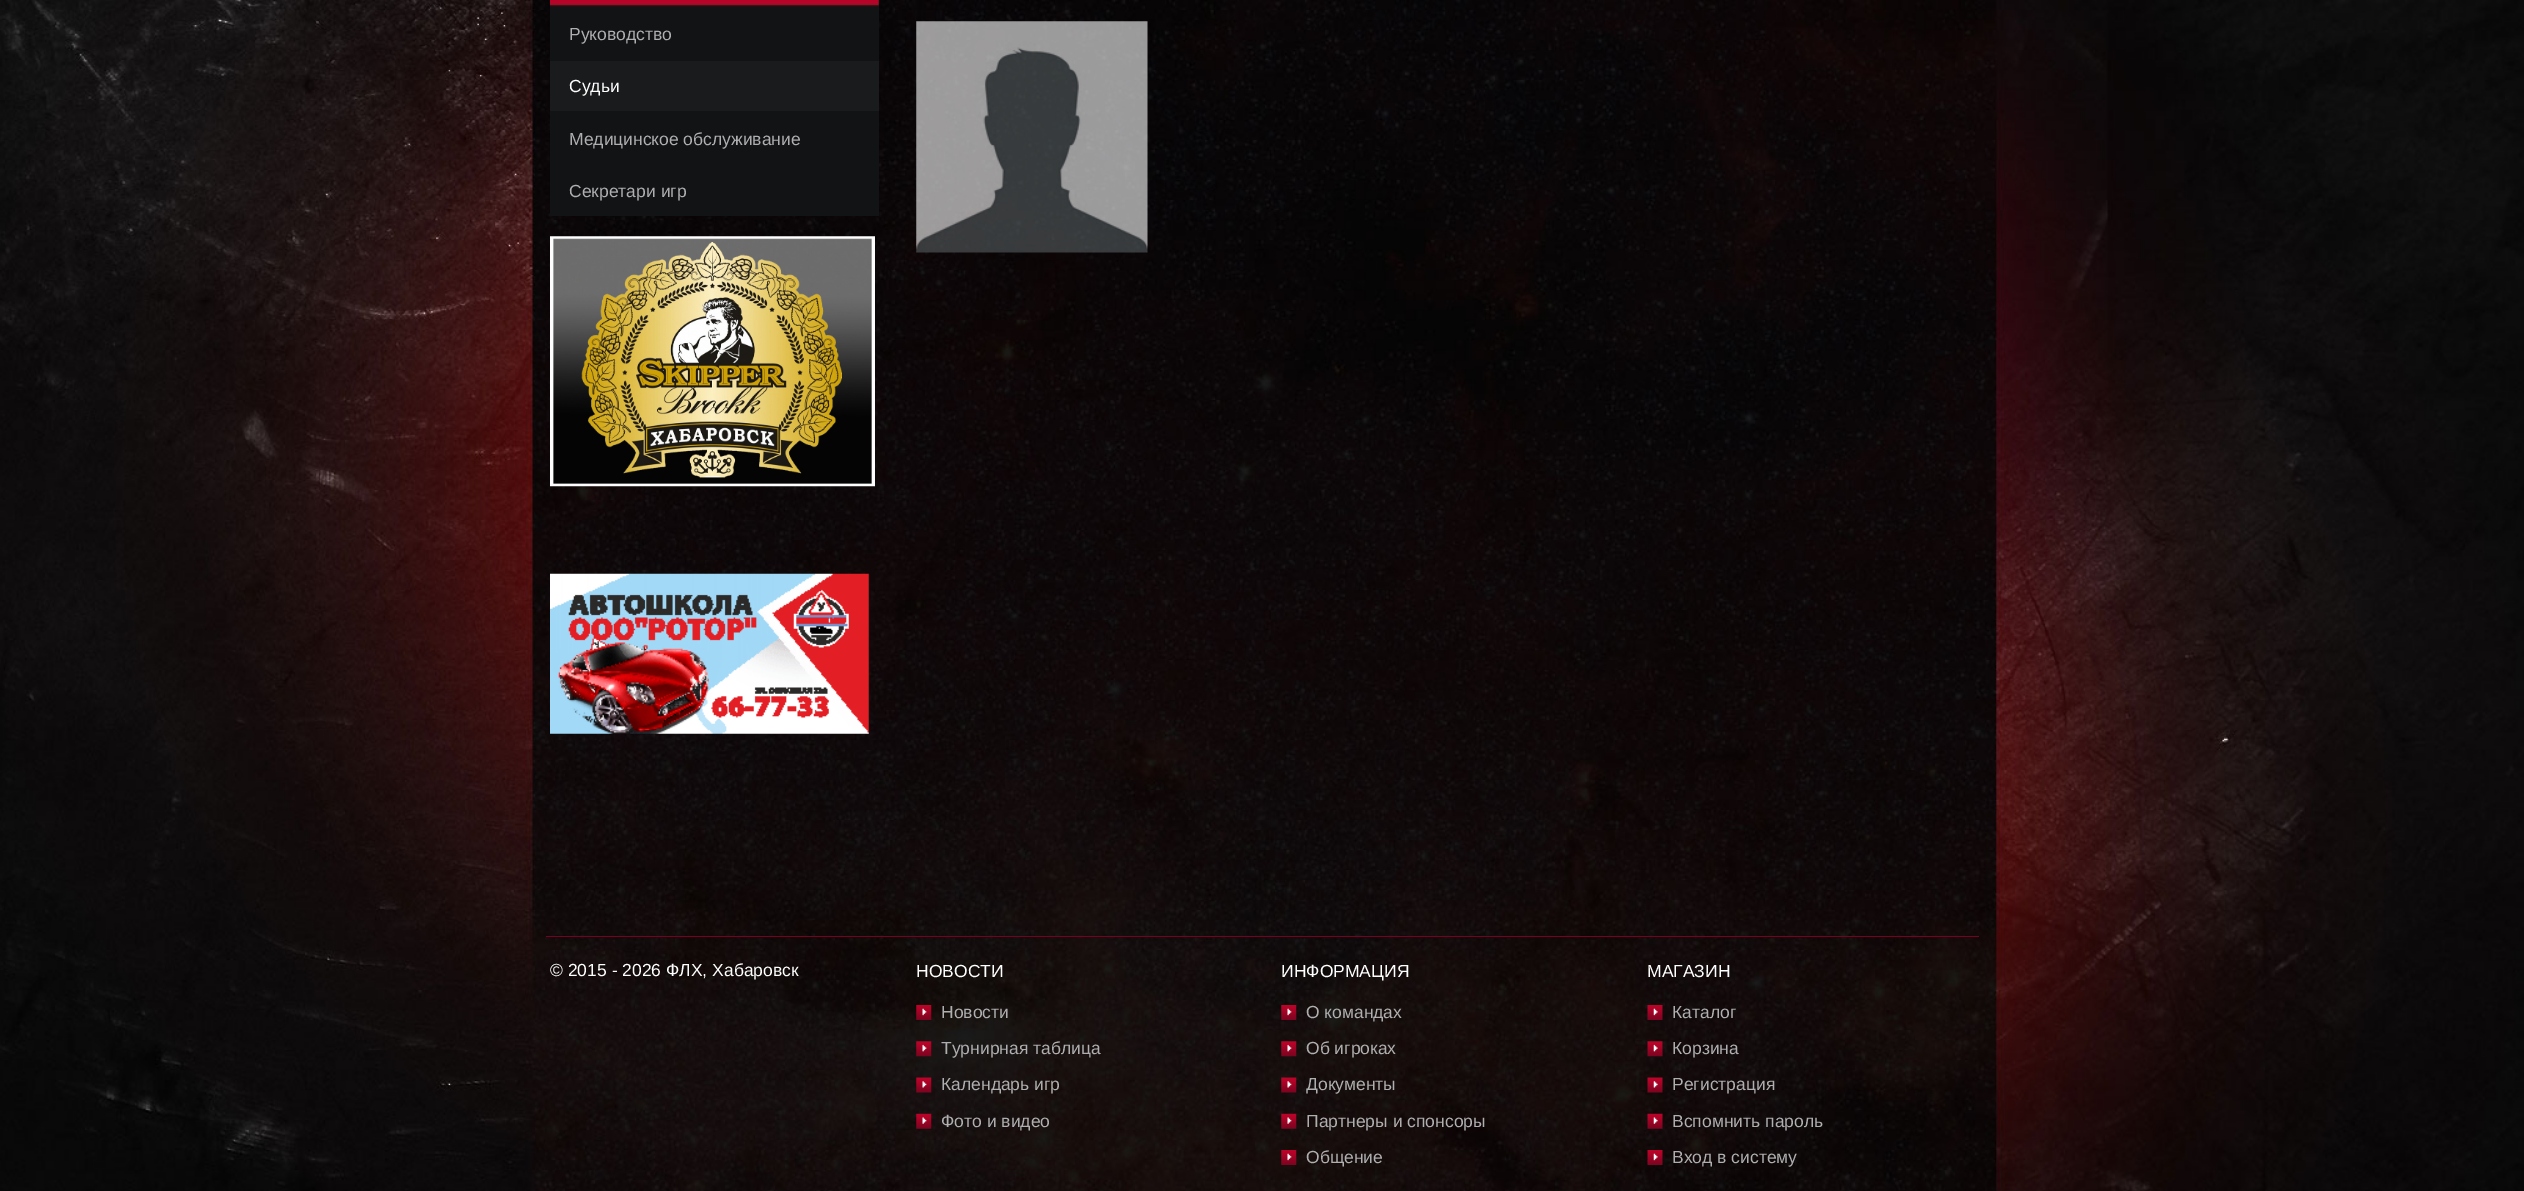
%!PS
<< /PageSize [2524 1191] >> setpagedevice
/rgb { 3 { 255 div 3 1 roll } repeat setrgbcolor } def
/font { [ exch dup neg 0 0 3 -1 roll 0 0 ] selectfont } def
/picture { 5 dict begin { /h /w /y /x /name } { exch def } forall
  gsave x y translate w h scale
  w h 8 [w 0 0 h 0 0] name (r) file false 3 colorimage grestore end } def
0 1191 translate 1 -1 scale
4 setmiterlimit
255 255 255 rgb
0 0 2524 1191 rectfill
(img/1.rgb) 0 0 2524 1191 picture
18 19 21 rgb
550 0 329 216 rectfill
(img/2.rgb) 550 0 329 7 picture
26 27 29 rgb
550 61 329 50 rectfill
(img/3.rgb) 550 236 325 251 picture
(img/4.rgb) 550 573 319 161 picture
(img/5.rgb) 916 21 232 232 picture
120 1 33 rgb
546 936 1433 1 rectfill
(img/6.rgb) 916 1005 16 15 picture
(img/7.rgb) 916 1041 16 16 picture
(img/8.rgb) 916 1077 16 16 picture
(img/9.rgb) 916 1113 16 16 picture
(img/10.rgb) 1281 1005 16 15 picture
(img/11.rgb) 1281 1041 16 16 picture
(img/12.rgb) 1281 1077 16 16 picture
(img/13.rgb) 1281 1113 16 16 picture
(img/14.rgb) 1281 1150 16 15 picture
(img/15.rgb) 1647 1005 16 15 picture
(img/16.rgb) 1647 1041 16 16 picture
(img/17.rgb) 1647 1077 16 16 picture
(img/18.rgb) 1647 1113 16 16 picture
(img/19.rgb) 1647 1150 16 15 picture
/LiberationSans-Regular 17.5 font
175 175 177 rgb
569 40 moveto (Руководство) show
255 255 255 rgb
569 92 moveto (Судьи) show
175 175 177 rgb
569 145 moveto (Медицинское обслуживание) show
569 197 moveto (Секретари игр) show
255 255 255 rgb
550 976 moveto (© 2015 - 2026 ФЛХ, Хабаровск) show
916 977 moveto (НОВОСТИ) show
175 175 177 rgb
[
  [(Новости) 941 1018]
  [(Турнирная таблица) 941 1054]
  [(Календарь игр) 941 1090]
  [(Фото и видео) 941 1127]
] { aload pop moveto show } forall
255 255 255 rgb
1281 977 moveto (ИНФОРМАЦИЯ) show
175 175 177 rgb
[
  [(О командах) 1306 1018]
  [(Об игроках) 1306 1054]
  [(Документы) 1306 1090]
  [(Партнеры и спонсоры) 1306 1127]
  [(Общение) 1306 1163]
] { aload pop moveto show } forall
255 255 255 rgb
1647 977 moveto (МАГАЗИН) show
175 175 177 rgb
[
  [(Каталог) 1672 1018]
  [(Корзина) 1672 1054]
  [(Регистрация) 1672 1090]
  [(Вспомнить пароль) 1672 1127]
  [(Вход в систему) 1672 1163]
] { aload pop moveto show } forall
showpage
